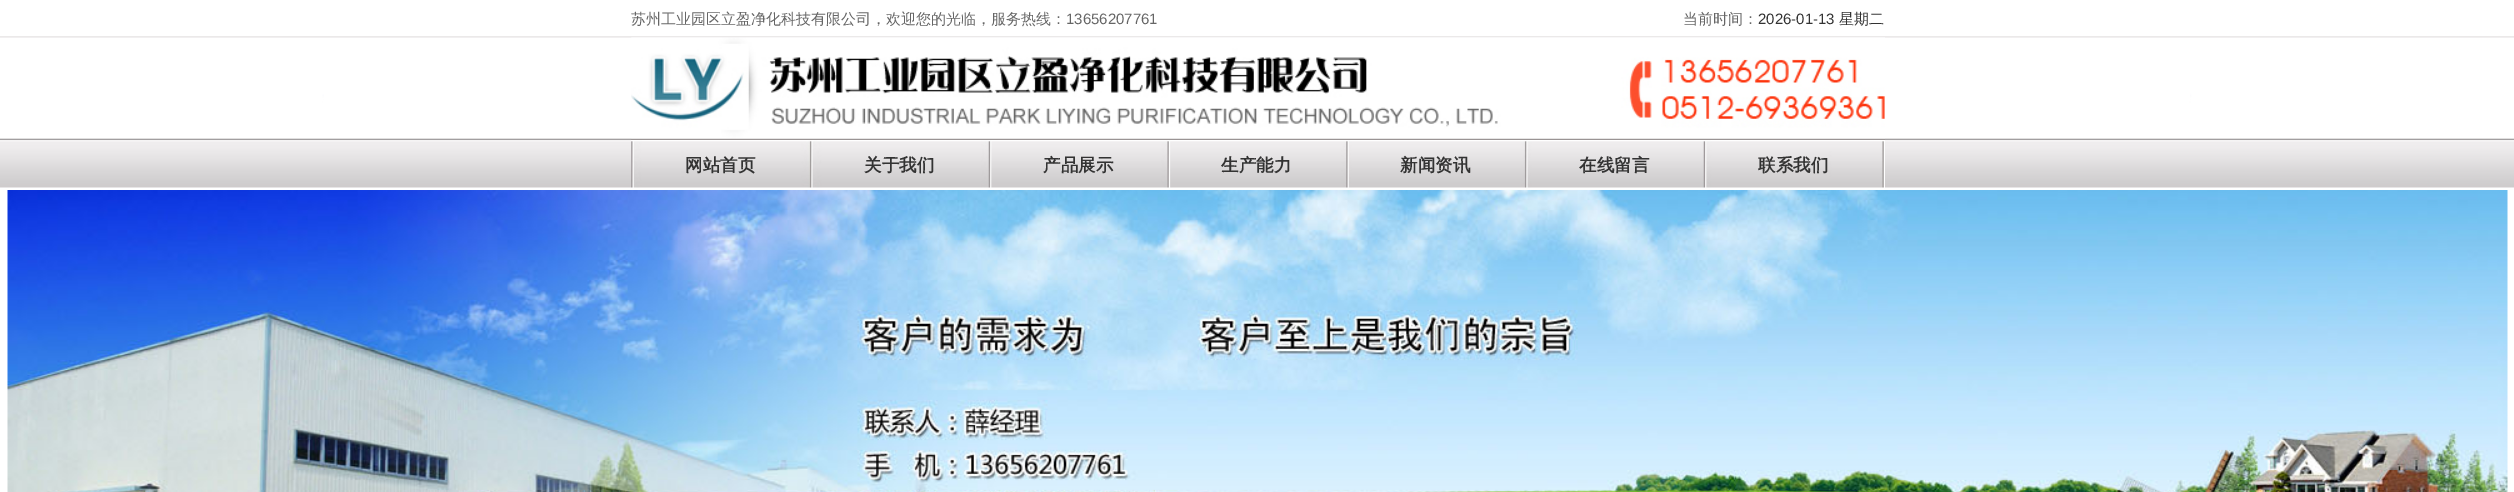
%!PS
<< /PageSize [2514 492] >> setpagedevice
/rgb { 3 { 255 div 3 1 roll } repeat setrgbcolor } def
/font { [ exch dup neg 0 0 3 -1 roll 0 0 ] selectfont } def
/picture { 5 dict begin { /h /w /y /x /name } { exch def } forall
  gsave x y translate w h scale
  w h 8 [w 0 0 h 0 0] name (r) file false 3 colorimage grestore end } def
0 492 translate 1 -1 scale
4 setmiterlimit
255 255 255 rgb
0 0 2514 492 rectfill
(img/1.rgb) 0 36 2514 152 picture
(img/2.rgb) 631 37 1254 103 picture
(img/3.rgb) 631 140 1254 48 picture
(img/4.rgb) 7 190 2501 302 picture
/WenQuanYiZenHei-Medium 15 font
102 102 102 rgb
631 24 moveto (苏州工业园区立盈净化科技有限公司，欢迎您的光临，服务热线：) show
/LiberationSans-Regular 15 font
1066 24 moveto (13656207761) show
/WenQuanYiZenHei-Medium 15 font
1683 24 moveto (当前时间：) show
/LiberationSans-Regular 15 font
51 51 51 rgb
1758 24 moveto (2026-01-13) show
/WenQuanYiZenHei-Medium 15 font
1839 24 moveto (星期二) show
/WenQuanYiZenHei-Bold 17.5 font
[
  [(网站首页) 685 171]
  [(关于我们) 864 171]
  [(产品展示) 1043 171]
  [(生产能力) 1221 171]
  [(新闻资讯) 1400 171]
  [(在线留言) 1579 171]
  [(联系我们) 1758 171]
] { aload pop moveto show } forall
showpage
